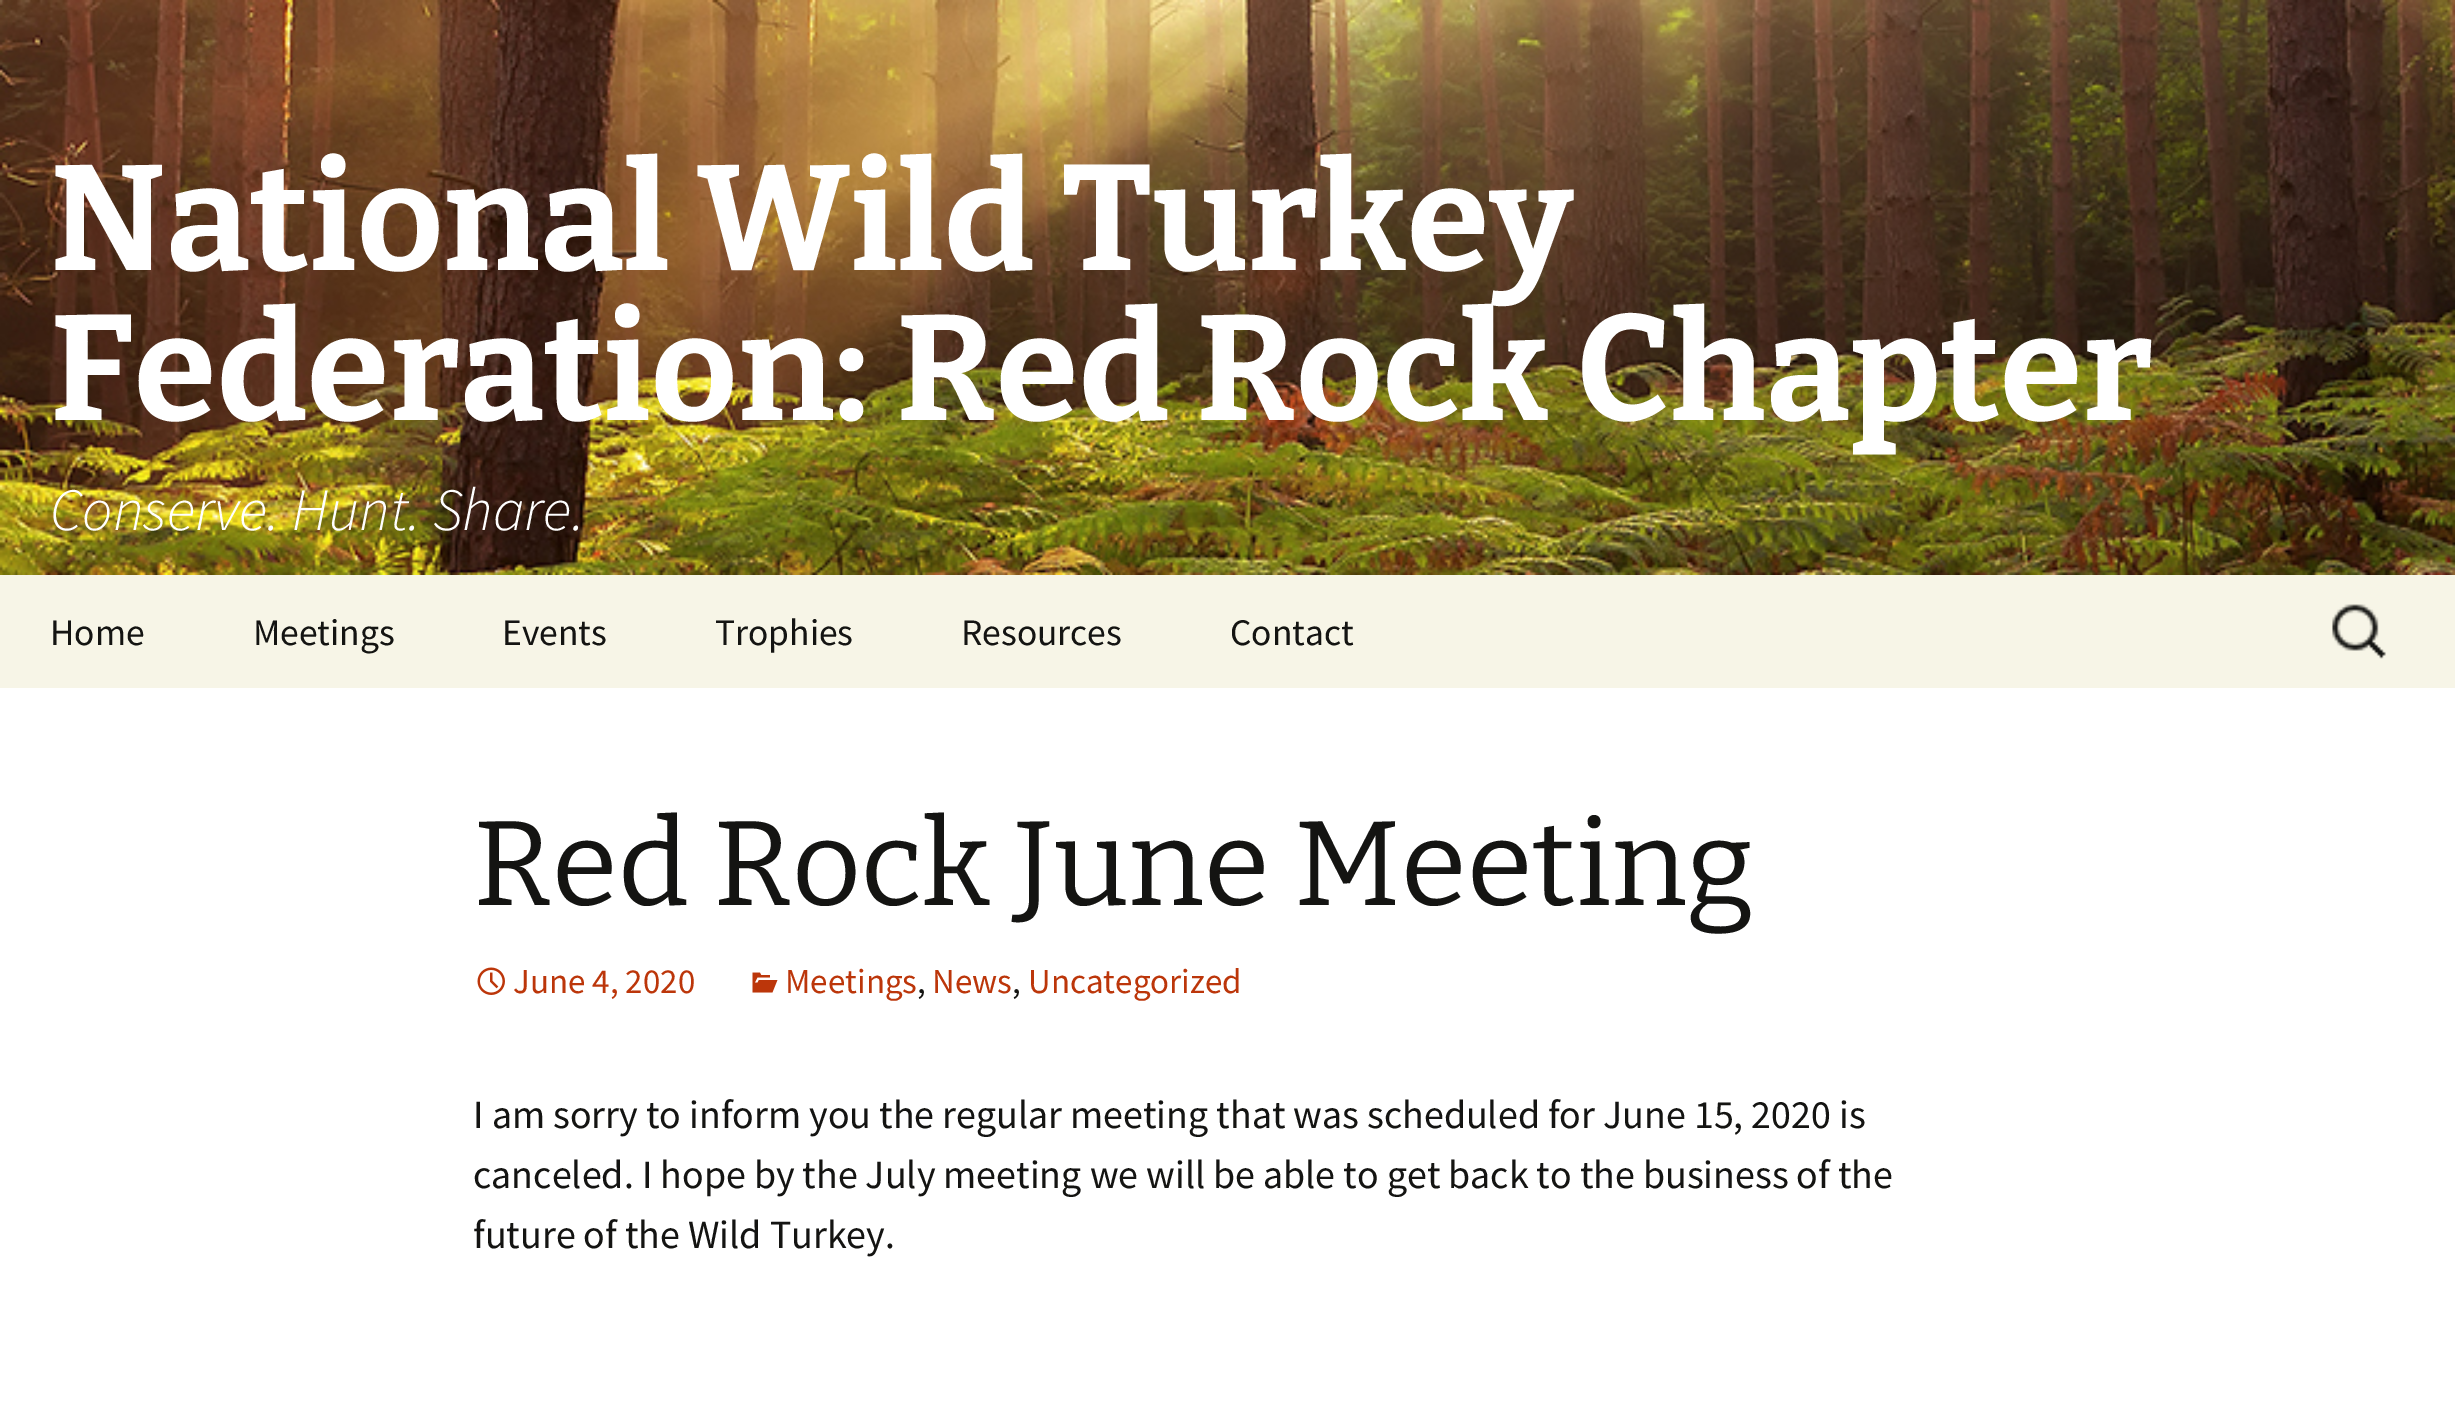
%!PS
<< /PageSize [2455 1404] >> setpagedevice
/rgb { 3 { 255 div 3 1 roll } repeat setrgbcolor } def
/font { [ exch dup neg 0 0 3 -1 roll 0 0 ] selectfont } def
/picture { 5 dict begin { /h /w /y /x /name } { exch def } forall
  gsave x y translate w h scale
  w h 8 [w 0 0 h 0 0] name (r) file false 3 colorimage grestore end } def
0 1404 translate 1 -1 scale
4 setmiterlimit
255 255 255 rgb
0 0 2455 1404 rectfill
(img/1.rgb) 0 0 2455 575 picture
247 245 231 rgb
0 575 2455 113 rectfill
(img/2.rgb) 2332 604 54 55 picture
(img/3.rgb) 477 967 28 28 picture
(img/4.rgb) 752 972 26 21 picture
/Bitter-Thin 150 font
255 255 255 rgb
50 270 moveto (National Wild Turkey) show
50 420 moveto (Federation: Red Rock Chapter) show
/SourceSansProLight-LightItalic 60 font
50 530 moveto (Conserve. Hunt. Share.) show
/SourceSansPro-Regular 37.5 font
20 20 18 rgb
[
  [(Home) 50 645]
  [(Meetings) 253 645]
  [(Events) 502 645]
  [(Trophies) 715 645]
  [(Resources) 961 645]
  [(Contact) 1230 645]
] { aload pop moveto show } forall
/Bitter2-Thin 120 font
473 905 moveto (Red Rock June Meeting) show
/SourceSansPro-Regular 35 font
188 54 10 rgb
513 993 moveto (June 4, 2020) show
785 993 moveto (Meetings) show
20 20 18 rgb
917 993 moveto (,) show
188 54 10 rgb
932 993 moveto (News) show
20 20 18 rgb
1012 993 moveto (,) show
188 54 10 rgb
1028 993 moveto (Uncategorized) show
/SourceSansPro-Regular 40 font
20 20 18 rgb
[
  [(I am sorry to inform you the regular meeting that was scheduled for June 15, 2020 is) 473 1128]
  [(canceled. I hope by the July meeting we will be able to get back to the business of the) 473 1188]
  [(future of the Wild Turkey.) 473 1248]
] { aload pop moveto show } forall
showpage
